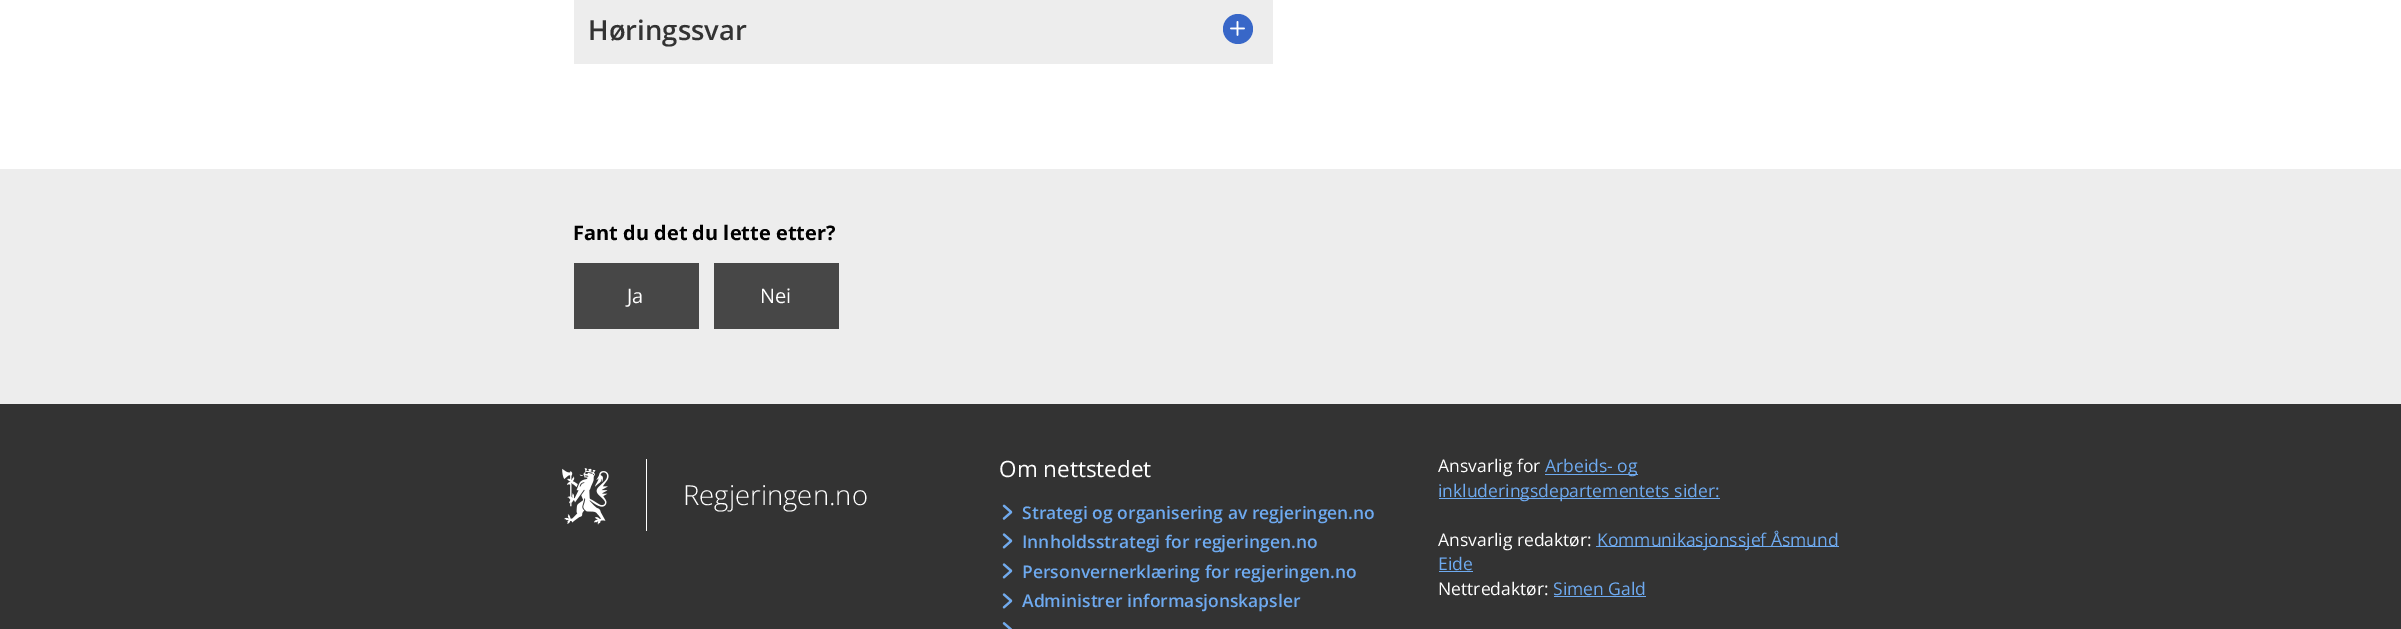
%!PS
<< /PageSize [2401 629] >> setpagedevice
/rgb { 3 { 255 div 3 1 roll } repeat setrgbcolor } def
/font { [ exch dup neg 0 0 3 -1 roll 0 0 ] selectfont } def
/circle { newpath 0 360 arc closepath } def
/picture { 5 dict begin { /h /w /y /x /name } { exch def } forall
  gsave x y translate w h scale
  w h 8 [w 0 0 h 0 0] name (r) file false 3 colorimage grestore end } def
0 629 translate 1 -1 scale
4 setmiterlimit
255 255 255 rgb
0 0 2401 629 rectfill
237 237 237 rgb
574 0 699 64 rectfill
56 103 200 rgb
1238 29 15 circle fill
(img/1.rgb) 1230 21 15 15 picture
[
  [0 169 2401 235 237 237 237]
  [574 263 125 66 71 71 71]
  [714 263 125 66 71 71 71]
  [0 404 2401 225 51 51 51]
] { aload pop rgb rectfill } forall
(img/2.rgb) 562 468 47 57 picture
255 255 255 rgb
646 459 1 72 rectfill
(img/3.rgb) 1002 504 11 16 picture
(img/4.rgb) 1002 504 11 16 picture
(img/5.rgb) 1002 533 11 16 picture
(img/6.rgb) 1002 533 11 16 picture
(img/5.rgb) 1002 563 11 16 picture
(img/6.rgb) 1002 563 11 16 picture
(img/5.rgb) 1002 593 11 16 picture
(img/6.rgb) 1002 593 11 16 picture
(img/7.rgb) 1002 622 10 7 picture
(img/8.rgb) 1002 622 10 7 picture
[
  [1545 474 93 1 110 170 240]
  [1439 498 281 1 110 170 240]
  [1596 546 243 1 110 170 240]
  [1439 571 34 1 110 170 240]
  [1554 596 92 1 110 170 240]
] { aload pop rgb rectfill } forall
/OpenSans-SemiBold 27.5 font
51 51 51 rgb
588 40 moveto (Høringssvar) show
/OpenSans-Bold 20 font
0 0 0 rgb
573 240 moveto (Fant du det du lette etter?) show
/OpenSans-Regular 20 font
255 255 255 rgb
627 303 moveto (Ja) show
760 303 moveto (Nei) show
/OpenSans-Light 27.5 font
683 505 moveto (Regjeringen.no) show
/OpenSans-Regular 22.5 font
999 477 moveto (Om nettstedet) show
/OpenSans-SemiBold 17.5 font
110 170 240 rgb
[
  [(Strategi og organisering av regjeringen.no) 1022 519]
  [(Innholdsstrategi for regjeringen.no) 1022 548]
  [(Personvernerklæring for regjeringen.no) 1022 578]
  [(Administrer informasjonskapsler) 1022 607]
] { aload pop moveto show } forall
/OpenSans-Regular 17.5 font
255 255 255 rgb
1438 472 moveto (Ansvarlig for) show
110 170 240 rgb
1545 472 moveto (Arbeids- og) show
1438 497 moveto (inkluderingsdepartementets sider:) show
255 255 255 rgb
1438 546 moveto (Ansvarlig redaktør:) show
110 170 240 rgb
1597 546 moveto (Kommunikasjonssjef Åsmund) show
1438 570 moveto (Eide) show
255 255 255 rgb
1438 595 moveto (Nettredaktør:) show
110 170 240 rgb
1553 595 moveto (Simen Gald) show
showpage
